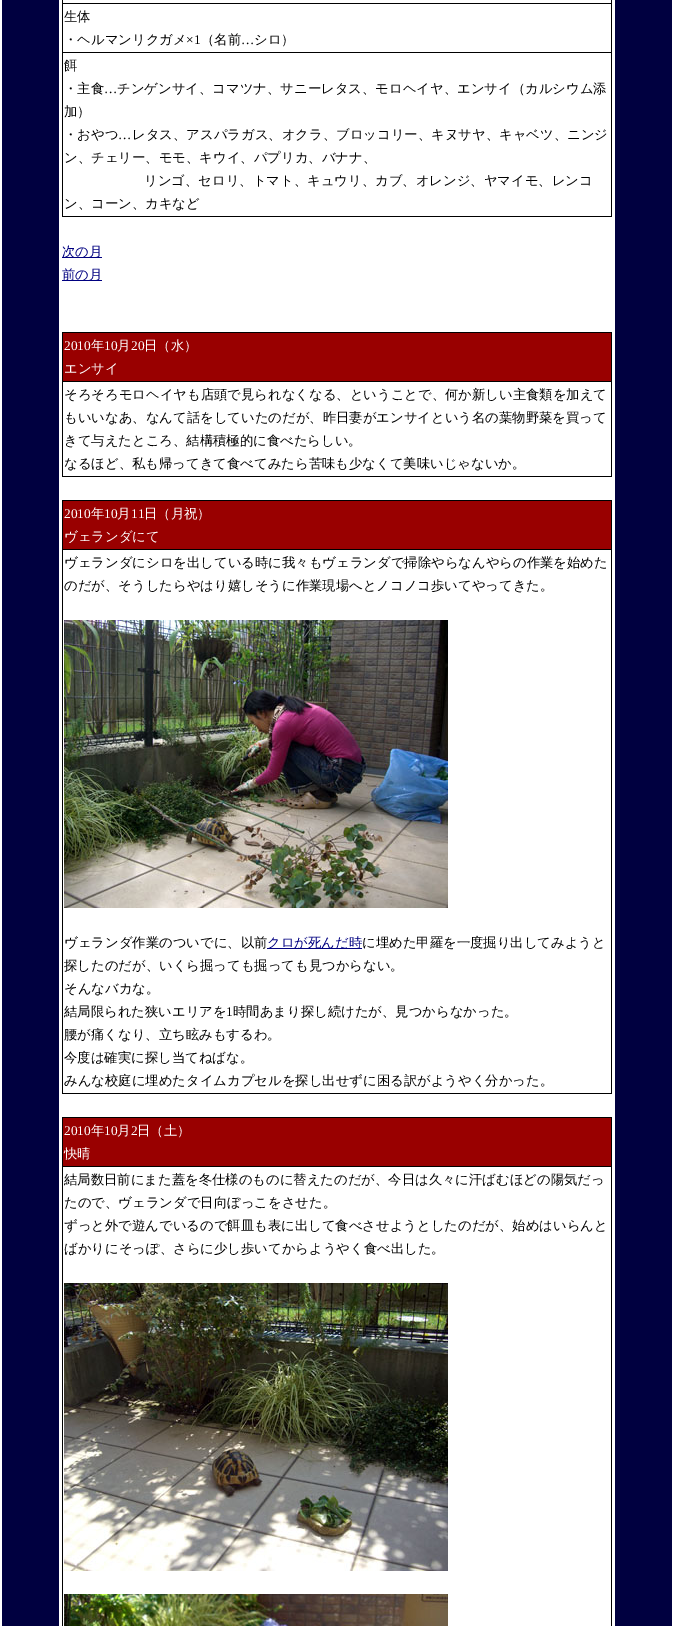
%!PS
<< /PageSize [674 1626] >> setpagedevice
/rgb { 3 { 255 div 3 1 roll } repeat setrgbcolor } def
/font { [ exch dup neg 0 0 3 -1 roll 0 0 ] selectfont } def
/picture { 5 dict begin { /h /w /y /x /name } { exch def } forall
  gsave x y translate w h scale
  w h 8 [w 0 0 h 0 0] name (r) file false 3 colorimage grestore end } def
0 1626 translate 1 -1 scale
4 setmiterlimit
255 255 255 rgb
0 0 674 1626 rectfill
[
  [2 0 57 1626 0 0 64]
  [62 0 550 217 0 0 0]
  [63 0 548 3 255 255 255]
  [63 4 548 48 255 255 255]
  [63 53 548 163 255 255 255]
  [62 257 40 1 0 0 128]
  [62 280 40 1 0 0 128]
  [62 332 550 145 0 0 0]
  [63 333 548 48 153 0 0]
  [63 382 548 94 255 255 255]
  [62 500 550 594 0 0 0]
  [63 501 548 48 153 0 0]
  [63 550 548 543 255 255 255]
] { aload pop rgb rectfill } forall
(img/1.rgb) 64 620 384 288 picture
[
  [267 948 95 1 0 0 128]
  [62 1117 550 509 0 0 0]
  [63 1118 548 48 153 0 0]
  [63 1167 548 459 255 255 255]
] { aload pop rgb rectfill } forall
(img/2.rgb) 64 1283 384 288 picture
(img/3.rgb) 64 1594 384 32 picture
0 0 64 rgb
615 0 57 1626 rectfill
/WenQuanYiZenHei-Medium 13.35 font
0 0 0 rgb
64 21 moveto (生体) show
64 44 moveto (・ヘルマンリクガメ) show
/LiberationSerif-Regular 13.35 font
186 44 moveto (×1) show
/WenQuanYiZenHei-Medium 13.35 font
201 44 moveto (（名前) show
/LiberationSerif-Regular 13.35 font
241 44 moveto (…) show
/WenQuanYiZenHei-Medium 13.35 font
[
  [(シロ）) 254 44]
  [(餌) 64 70]
  [(・主食) 64 93]
] { aload pop moveto show } forall
/LiberationSerif-Regular 13.35 font
104 93 moveto (…) show
/WenQuanYiZenHei-Medium 13.35 font
[
  [(チンゲンサイ、コマツナ、サニーレタス、モロヘイヤ、エンサイ（カルシウム添) 117 93]
  [(加）) 64 116]
  [(・おやつ) 64 139]
] { aload pop moveto show } forall
/LiberationSerif-Regular 13.35 font
118 139 moveto (…) show
/WenQuanYiZenHei-Medium 13.35 font
[
  [(レタス、アスパラガス、オクラ、ブロッコリー、キヌサヤ、キャベツ、ニンジ) 132 139]
  [(ン、チェリー、モモ、キウイ、パプリカ、バナナ、) 64 162]
  [(リンゴ、セロリ、トマト、キュウリ、カブ、オレンジ、ヤマイモ、レンコ) 144 185]
  [(ン、コーン、カキなど) 64 208]
] { aload pop moveto show } forall
0 0 128 rgb
62 256 moveto (次の月) show
62 279 moveto (前の月) show
/LiberationSerif-Regular 13.35 font
255 255 255 rgb
64 350 moveto (2010) show
/WenQuanYiZenHei-Medium 13.35 font
91 350 moveto (年) show
/LiberationSerif-Regular 13.35 font
104 350 moveto (10) show
/WenQuanYiZenHei-Medium 13.35 font
117 350 moveto (月) show
/LiberationSerif-Regular 13.35 font
131 350 moveto (20) show
/WenQuanYiZenHei-Medium 13.35 font
144 350 moveto (日（水）) show
64 373 moveto (エンサイ) show
0 0 0 rgb
[
  [(そろそろモロヘイヤも店頭で見られなくなる、ということで、何か新しい主食類を加えて) 64 399]
  [(もいいなあ、なんて話をしていたのだが、昨日妻がエンサイという名の葉物野菜を買って) 64 422]
  [(きて与えたところ、結構積極的に食べたらしい。) 64 445]
  [(なるほど、私も帰ってきて食べてみたら苦味も少なくて美味いじゃないか。) 64 468]
] { aload pop moveto show } forall
/LiberationSerif-Regular 13.35 font
255 255 255 rgb
64 518 moveto (2010) show
/WenQuanYiZenHei-Medium 13.35 font
91 518 moveto (年) show
/LiberationSerif-Regular 13.35 font
104 518 moveto (10) show
/WenQuanYiZenHei-Medium 13.35 font
117 518 moveto (月) show
/LiberationSerif-Regular 13.35 font
131 518 moveto (11) show
/WenQuanYiZenHei-Medium 13.35 font
144 518 moveto (日（月祝）) show
64 541 moveto (ヴェランダにて) show
0 0 0 rgb
[
  [(ヴェランダにシロを出している時に我々もヴェランダで掃除やらなんやらの作業を始めた) 64 567]
  [(のだが、そうしたらやはり嬉しそうに作業現場へとノコノコ歩いてやってきた。) 64 590]
  [(ヴェランダ作業のついでに、以前) 64 947]
] { aload pop moveto show } forall
0 0 128 rgb
267 947 moveto (クロが死んだ時) show
0 0 0 rgb
[
  [(に埋めた甲羅を一度掘り出してみようと) 362 947]
  [(探したのだが、いくら掘っても掘っても見つからない。) 64 970]
  [(そんなバカな。) 64 993]
  [(結局限られた狭いエリアを) 64 1016]
] { aload pop moveto show } forall
/LiberationSerif-Regular 13.35 font
226 1016 moveto (1) show
/WenQuanYiZenHei-Medium 13.35 font
[
  [(時間あまり探し続けたが、見つからなかった。) 233 1016]
  [(腰が痛くなり、立ち眩みもするわ。) 64 1039]
  [(今度は確実に探し当てねばな。) 64 1062]
  [(みんな校庭に埋めたタイムカプセルを探し出せずに困る訳がようやく分かった。) 64 1085]
] { aload pop moveto show } forall
/LiberationSerif-Regular 13.35 font
255 255 255 rgb
64 1135 moveto (2010) show
/WenQuanYiZenHei-Medium 13.35 font
91 1135 moveto (年) show
/LiberationSerif-Regular 13.35 font
104 1135 moveto (10) show
/WenQuanYiZenHei-Medium 13.35 font
117 1135 moveto (月) show
/LiberationSerif-Regular 13.35 font
131 1135 moveto (2) show
/WenQuanYiZenHei-Medium 13.35 font
137 1135 moveto (日（土）) show
64 1158 moveto (快晴) show
0 0 0 rgb
[
  [(結局数日前にまた蓋を冬仕様のものに替えたのだが、今日は久々に汗ばむほどの陽気だっ) 64 1184]
  [(たので、ヴェランダで日向ぼっこをさせた。) 64 1207]
  [(ずっと外で遊んでいるので餌皿も表に出して食べさせようとしたのだが、始めはいらんと) 64 1230]
  [(ばかりにそっぽ、さらに少し歩いてからようやく食べ出した。) 64 1253]
] { aload pop moveto show } forall
showpage
